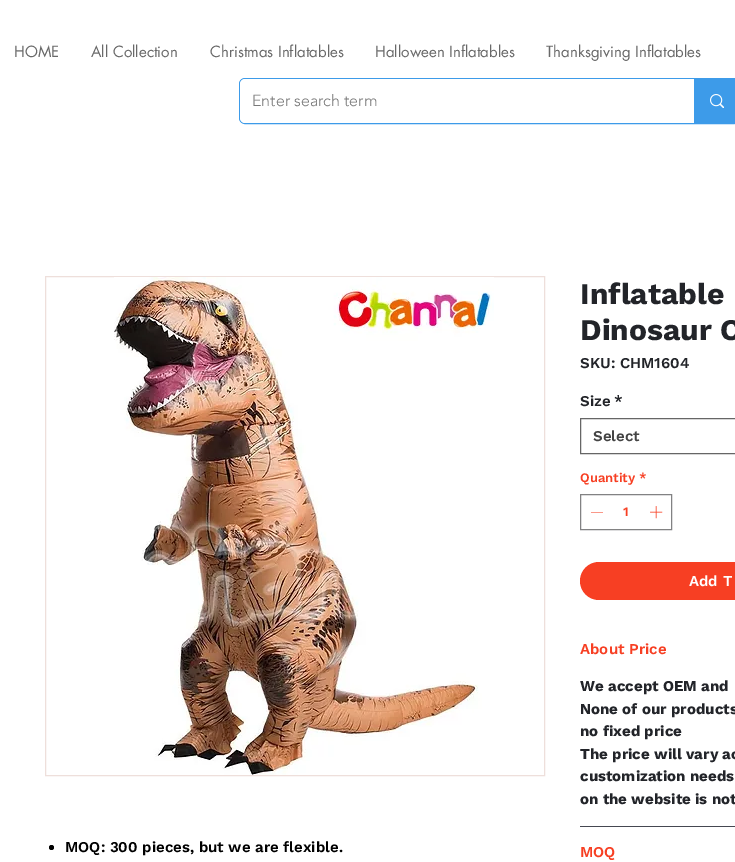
%!PS
<< /PageSize [735 862] >> setpagedevice
/rgb { 3 { 255 div 3 1 roll } repeat setrgbcolor } def
/font { [ exch dup neg 0 0 3 -1 roll 0 0 ] selectfont } def
/circle { newpath 0 360 arc closepath } def
/roundrect { 5 dict begin { /r /h /w /y /x } { exch def } forall
  x r add y moveto x w add y 2 copy h add r arct x w add y h add x 1 index r arct
  x y h add x y r arct x y 2 copy exch w add exch r arct closepath end } def
/picture { 5 dict begin { /h /w /y /x /name } { exch def } forall
  gsave x y translate w h scale
  w h 8 [w 0 0 h 0 0] name (r) file false 3 colorimage grestore end } def
0 862 translate 1 -1 scale
4 setmiterlimit
255 255 255 rgb
0 0 735 862 rectfill
61 155 233 rgb
239.5 78.5 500 45 5.5 roundrect stroke
255 255 255 rgb
240 79 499 44 5 roundrect fill
61 155 233 rgb
694 79 41 44 rectfill
(img/1.rgb) 710 94 14 14 picture
238 223 219 rgb
45.5 276.5 499 499 rectstroke
(img/2.rgb) 114 277 380 498 picture
0 0 0 rgb
51.5 847.5 2.5 circle fill
102 102 102 rgb
580.5 418.5 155 35 rectstroke
130 130 131 rgb
580.5 494.5 91 35 rectstroke
247 63 35 rgb
603 512 moveto 603 512.5 lineto 591 512.5 lineto 591 512 lineto closepath eofill
(img/3.rgb) 650 506 13 13 picture
580 562 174 38 19 roundrect fill
69 71 81 rgb
580 826 155 1 rectfill
/futura-Regular 15 font
105 105 105 rgb
[
  [(HOME) 14 57]
  [(All Collection) 91 57]
  [(Christmas Inflatables) 210 57]
  [(Halloween Inflatables) 375 57]
  [(Thanksgiving Inflatables) 546 57]
] { aload pop moveto show } forall
/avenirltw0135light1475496-Light 16 font
120 120 120 rgb
252 106 moveto (Enter search term) show
/WorkSans-SemiBold 15 font
0 0 0 rgb
65 852 moveto (MOQ: 300 pieces, but we are flexible.) show
/WorkSans-Bold 30 font
34 36 41 rgb
580 304 moveto (Inflatable) show
580 340 moveto (Dinosaur C) show
/WorkSans-SemiBold 15 font
[
  [(SKU: CHM1604) 580 368]
  [(Size) 580 406]
  [(*) 614 406]
] { aload pop moveto show } forall
68 68 68 rgb
593 441 moveto (Select) show
/WorkSans-SemiBold 13 font
247 63 35 rgb
580 482 moveto (Quantity *) show
623 516 moveto (1) show
/WorkSans-SemiBold 15 font
255 255 255 rgb
689 586 moveto (Add T) show
247 63 35 rgb
580 654 moveto (About Price) show
/WorkSans-Bold 15 font
34 36 41 rgb
[
  [(We accept OEM and) 580 691]
  [(None of our products) 580 714]
  [(no fixed price) 580 736]
  [(The price will vary ac) 580 759]
  [(customization needs) 580 781]
  [(on the website is not) 580 804]
] { aload pop moveto show } forall
/WorkSans-SemiBold 15 font
247 63 35 rgb
580 857 moveto (MOQ) show
showpage
